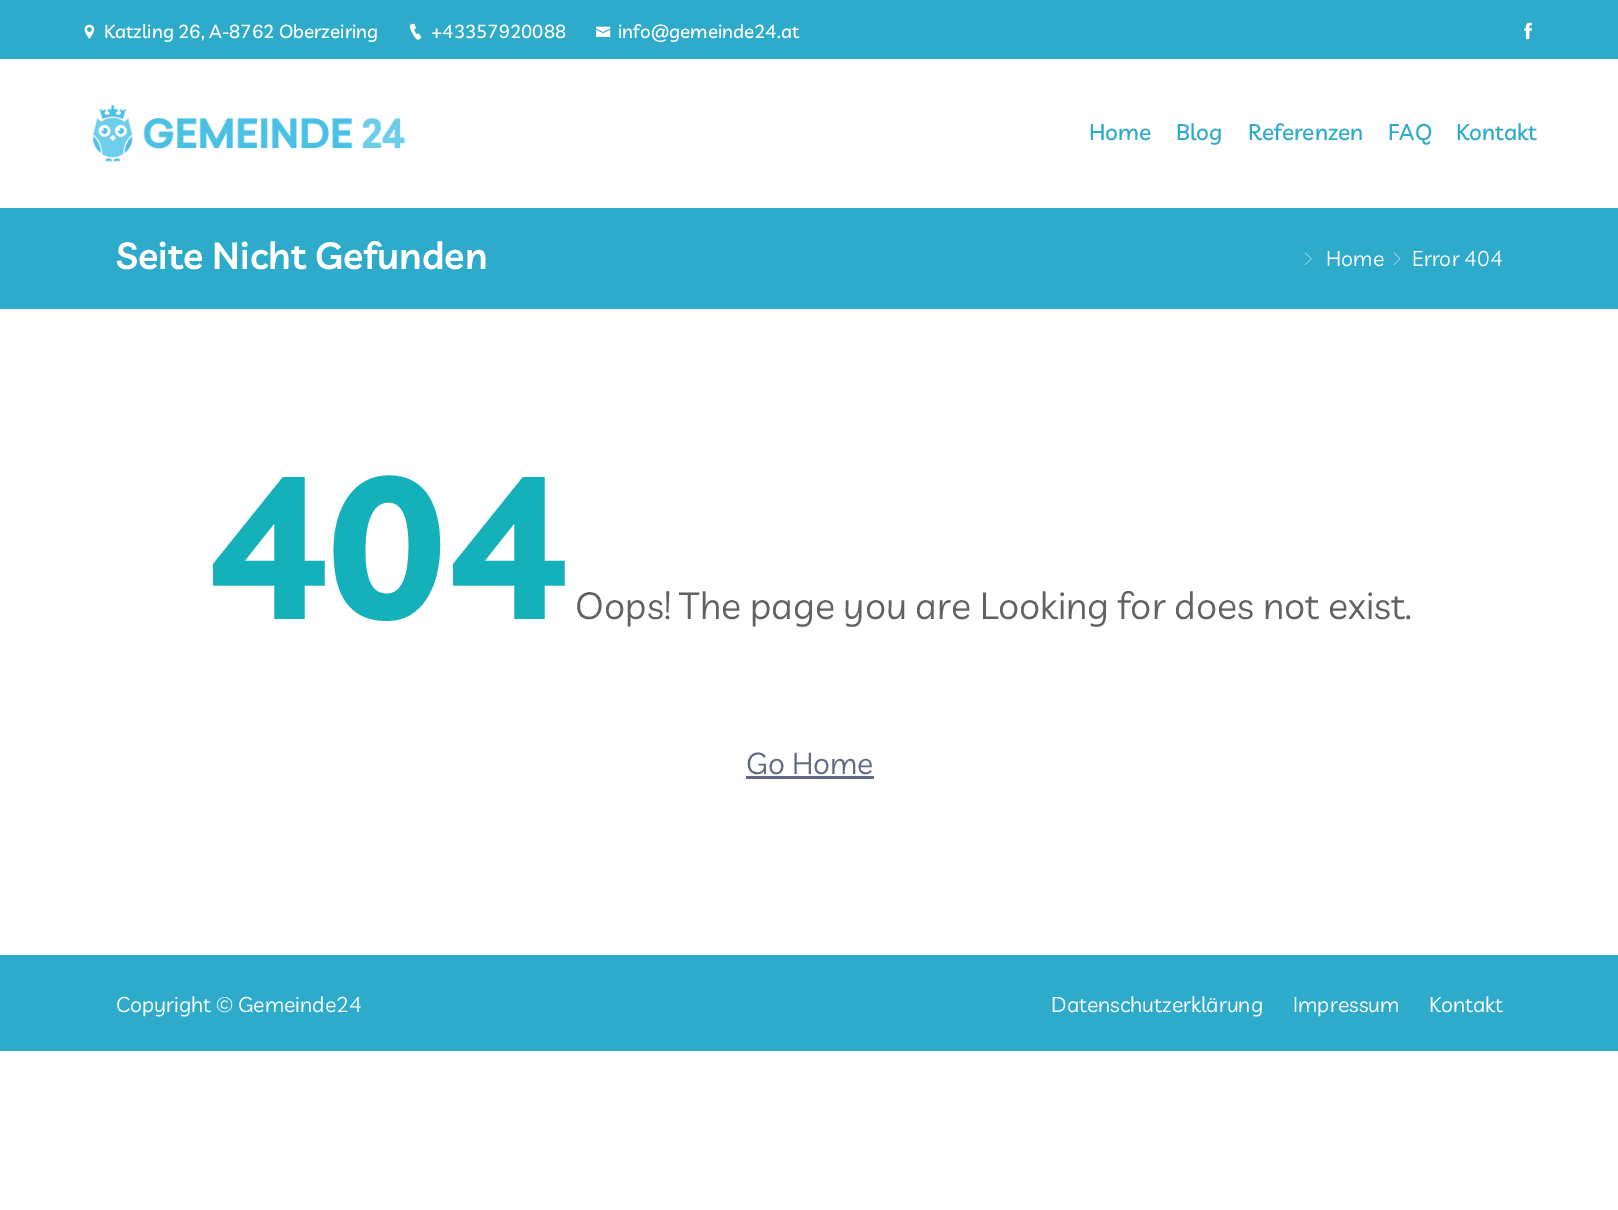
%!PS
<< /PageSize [1618 1210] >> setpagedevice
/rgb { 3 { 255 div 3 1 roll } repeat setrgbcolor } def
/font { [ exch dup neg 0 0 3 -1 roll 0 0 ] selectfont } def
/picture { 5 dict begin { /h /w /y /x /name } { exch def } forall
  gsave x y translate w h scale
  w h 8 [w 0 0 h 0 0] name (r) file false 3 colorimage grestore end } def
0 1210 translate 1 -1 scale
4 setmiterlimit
255 255 255 rgb
0 0 1618 1210 rectfill
46 170 203 rgb
0 0 1618 59 rectfill
(img/1.rgb) 84 24 11 15 picture
(img/2.rgb) 410 23 12 17 picture
(img/3.rgb) 596 26 15 11 picture
(img/4.rgb) 1524 22 8 18 picture
(img/5.rgb) 92 105 314 57 picture
0 208 1618 101 rectfill
(img/6.rgb) 1304 252 8 14 picture
(img/7.rgb) 1393 252 8 14 picture
[
  [0 309 1618 1 245 243 243]
  [746 776 128 3 96 107 130]
  [0 955 1618 96 46 170 203]
] { aload pop rgb rectfill } forall
/Livvic-Medium 18.75 font
255 255 255 rgb
[
  [(Katzling 26, A-8762 Oberzeiring) 104 38]
  [(+43357920088) 431 38]
  [(info@gemeinde24.at) 618 38]
] { aload pop moveto show } forall
/Livvic-Medium 22.5 font
46 170 203 rgb
[
  [(Home) 1089 140]
  [(Blog) 1176 140]
  [(Referenzen) 1248 140]
  [(FAQ) 1388 140]
  [(Kontakt) 1456 140]
] { aload pop moveto show } forall
/Livvic-SemiBold 37.5 font
255 255 255 rgb
116 269 moveto (Seite Nicht Gefunden) show
/Livvic-Regular 21.25 font
1326 266 moveto (Home) show
1412 266 moveto (Error 404) show
/Livvic-Bold 200 font
20 177 187 rgb
207 619 moveto (404) show
/Livvic-Regular 37.5 font
97 97 97 rgb
575 619 moveto (Oops! The page you are Looking for does not exist.) show
/Livvic-Regular 30 font
96 107 130 rgb
746 774 moveto (Go Home) show
/Livvic-Regular 21.25 font
255 255 255 rgb
[
  [(Copyright © Gemeinde24) 116 1012]
  [(Datenschutzerklärung) 1051 1012]
  [(Impressum) 1293 1012]
  [(Kontakt) 1429 1012]
] { aload pop moveto show } forall
showpage
